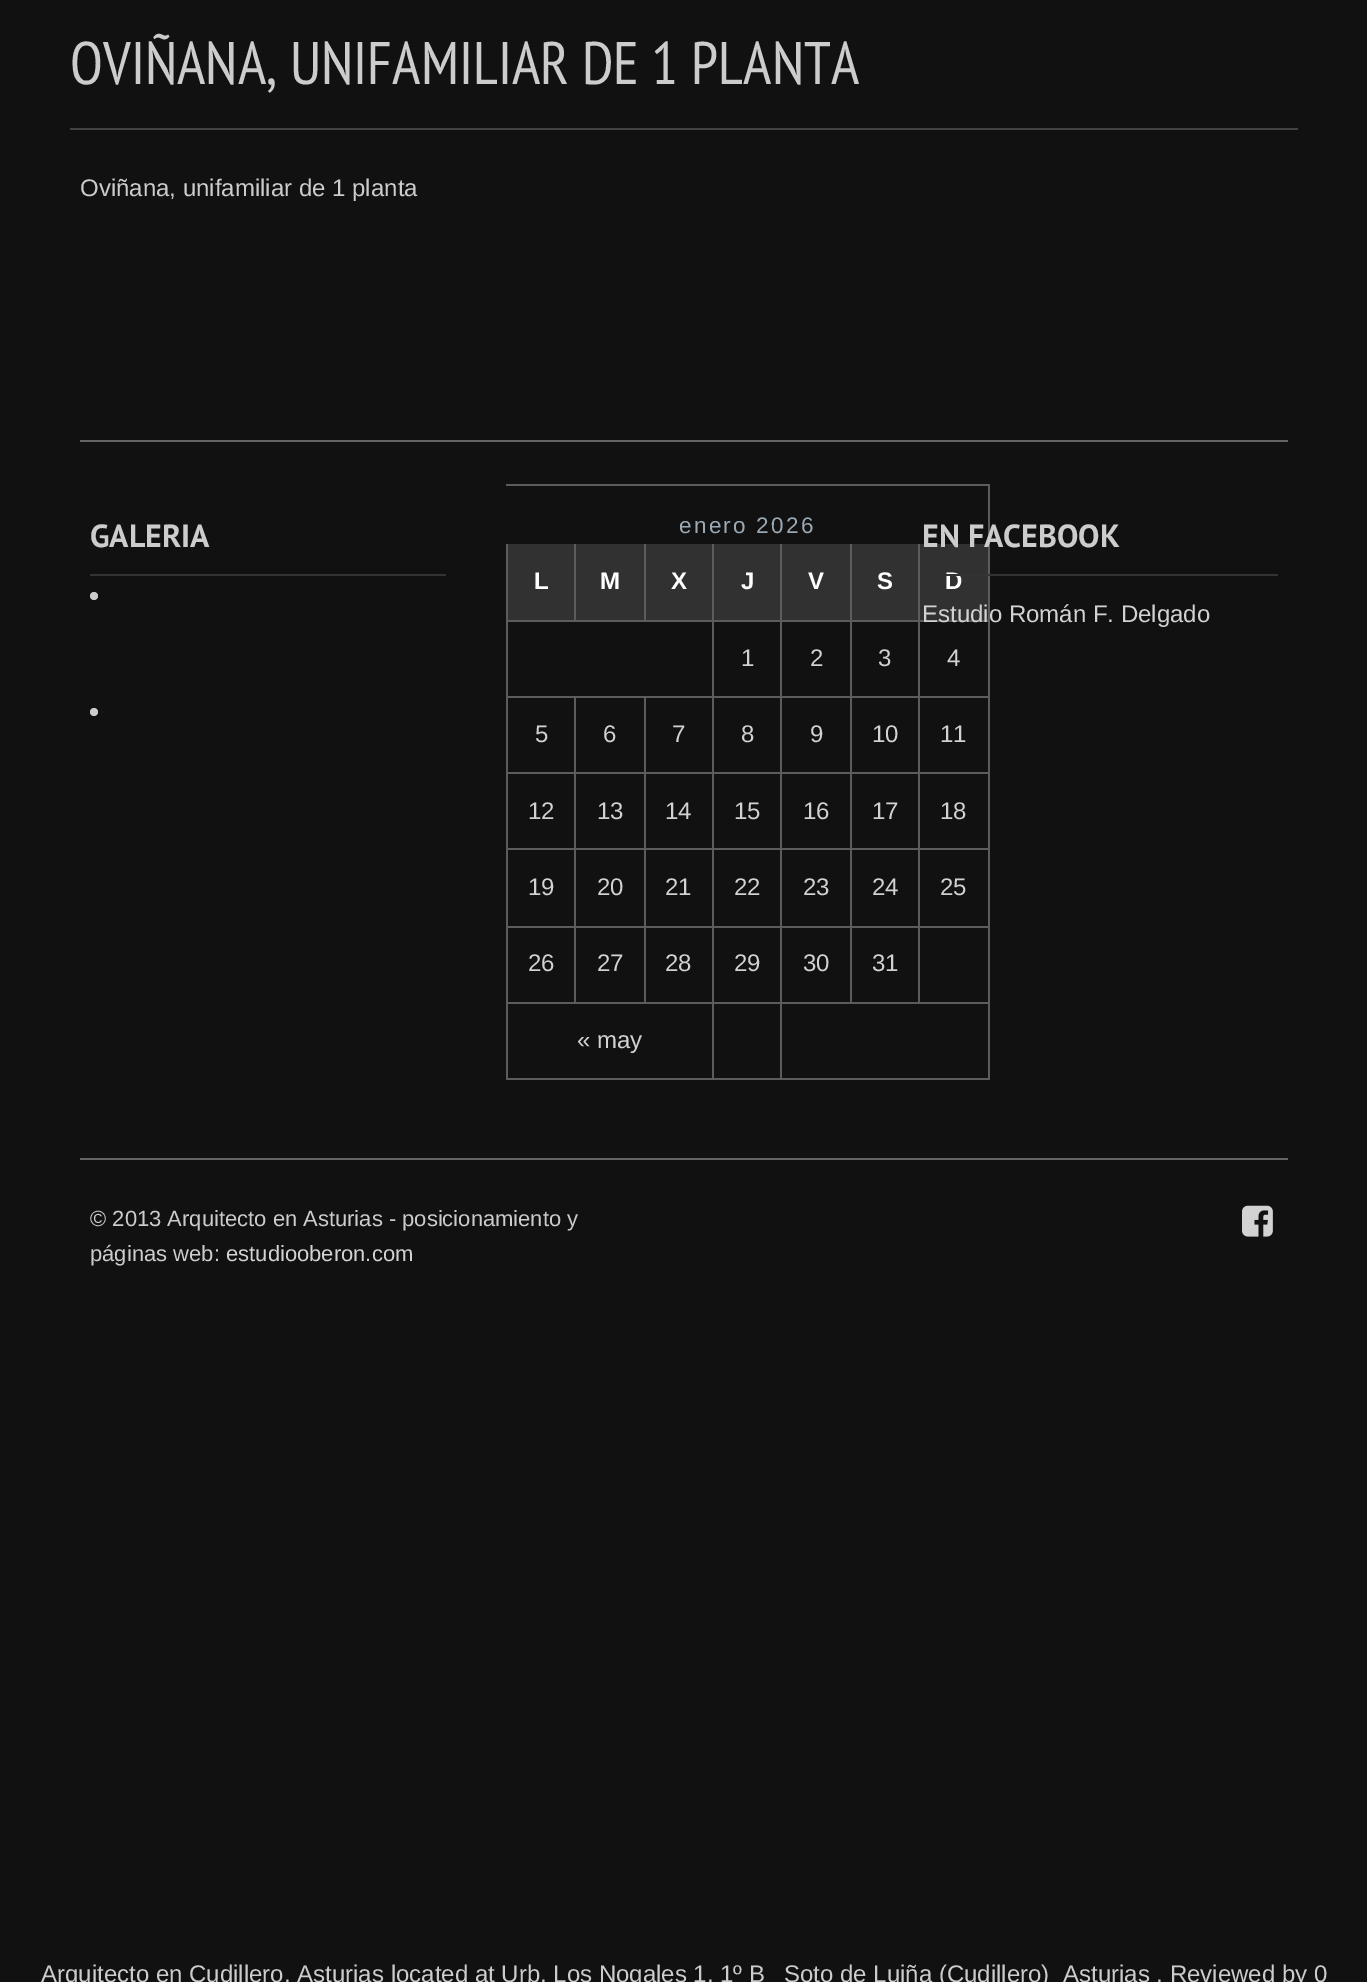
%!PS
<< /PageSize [1367 1982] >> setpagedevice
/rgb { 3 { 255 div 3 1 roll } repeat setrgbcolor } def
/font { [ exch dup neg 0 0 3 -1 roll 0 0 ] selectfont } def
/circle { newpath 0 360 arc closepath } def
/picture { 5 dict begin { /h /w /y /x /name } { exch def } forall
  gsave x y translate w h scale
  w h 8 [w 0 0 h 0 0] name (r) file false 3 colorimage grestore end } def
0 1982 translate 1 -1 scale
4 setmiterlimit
17 17 17 rgb
0 0 1367 1982 rectfill
[
  [70 128 1228 2 67 67 67]
  [80 440 1208 2 100 100 100]
  [90 574 356 2 51 51 51]
] { aload pop rgb rectfill } forall
204 204 204 rgb
94 596 4 circle fill
94 712 4 circle fill
[
  [506 484 484 2 92 92 92]
  [988 484 2 596 92 92 92]
  [508 544 66 76 49 49 49]
  [918 1002 72 2 92 92 92]
  [918 926 2 78 92 92 92]
  [918 926 72 2 92 92 92]
  [918 848 2 80 92 92 92]
  [918 848 72 2 92 92 92]
  [918 772 2 78 92 92 92]
  [918 772 72 2 92 92 92]
  [918 696 2 78 92 92 92]
  [918 696 72 2 92 92 92]
  [918 620 2 78 92 92 92]
  [918 620 72 2 92 92 92]
  [918 544 2 78 92 92 92]
  [850 1002 70 2 92 92 92]
  [850 926 2 78 92 92 92]
  [850 926 70 2 92 92 92]
  [850 848 2 80 92 92 92]
  [850 848 70 2 92 92 92]
  [850 772 2 78 92 92 92]
  [850 772 70 2 92 92 92]
  [850 696 2 78 92 92 92]
  [850 696 70 2 92 92 92]
  [850 620 2 78 92 92 92]
  [850 620 70 2 92 92 92]
  [850 544 2 78 92 92 92]
  [780 1002 72 2 92 92 92]
  [780 926 2 78 92 92 92]
  [780 926 72 2 92 92 92]
  [780 848 2 80 92 92 92]
  [780 848 72 2 92 92 92]
  [780 772 2 78 92 92 92]
  [780 772 72 2 92 92 92]
  [780 696 2 78 92 92 92]
  [780 696 72 2 92 92 92]
  [780 620 2 78 92 92 92]
  [780 620 72 2 92 92 92]
  [780 544 2 78 92 92 92]
  [712 1002 70 2 92 92 92]
  [712 926 2 78 92 92 92]
  [712 926 70 2 92 92 92]
  [712 848 2 80 92 92 92]
  [712 848 70 2 92 92 92]
  [712 772 2 78 92 92 92]
  [712 772 70 2 92 92 92]
  [712 696 2 78 92 92 92]
  [712 696 70 2 92 92 92]
  [712 620 2 78 92 92 92]
  [712 620 70 2 92 92 92]
  [712 544 2 78 92 92 92]
  [644 620 70 2 92 92 92]
  [644 544 2 78 92 92 92]
  [574 620 72 2 92 92 92]
  [574 544 2 78 92 92 92]
  [644 1002 70 2 92 92 92]
  [644 926 2 78 92 92 92]
  [644 926 70 2 92 92 92]
  [644 848 2 80 92 92 92]
  [644 848 70 2 92 92 92]
  [644 772 2 78 92 92 92]
  [644 772 70 2 92 92 92]
  [644 696 2 78 92 92 92]
  [574 1002 72 2 92 92 92]
  [574 926 2 78 92 92 92]
  [574 926 72 2 92 92 92]
  [574 848 2 80 92 92 92]
  [574 848 72 2 92 92 92]
  [574 772 2 78 92 92 92]
  [574 772 72 2 92 92 92]
  [574 696 2 78 92 92 92]
  [506 1002 70 2 92 92 92]
  [506 926 2 78 92 92 92]
  [506 926 70 2 92 92 92]
  [506 848 2 80 92 92 92]
  [506 848 70 2 92 92 92]
  [506 772 2 78 92 92 92]
  [506 772 70 2 92 92 92]
  [506 696 2 78 92 92 92]
  [506 696 208 2 92 92 92]
  [506 620 2 78 92 92 92]
  [506 620 70 2 92 92 92]
  [506 544 2 78 92 92 92]
  [576 544 68 76 49 49 49]
  [646 544 66 76 49 49 49]
  [714 544 66 76 49 49 49]
  [782 544 68 76 49 49 49]
  [852 544 66 76 49 49 49]
  [920 544 68 76 49 49 49]
  [780 1078 210 2 92 92 92]
  [780 1002 2 78 92 92 92]
  [712 1078 70 2 92 92 92]
  [712 1002 2 78 92 92 92]
  [506 1078 208 2 92 92 92]
  [506 1002 2 78 92 92 92]
  [80 1158 1208 2 100 100 100]
] { aload pop rgb rectfill } forall
(img/1.rgb) 1242 1205 31 32 picture
/PTSansNarrow-Regular 60 font
204 204 204 rgb
70 84 moveto (OVIÑANA, UNIFAMILIAR DE 1 PLANTA) show
/LiberationSans-Regular 24 font
80 196 moveto (Oviñana, unifamiliar de 1 planta) show
/PTSans-Bold 32 font
90 547 moveto (GALERIA) show
/LiberationSans-Regular 22.5 font
155 169 180 rgb
679 533 moveto 2.25 0 (enero 2026) ashow
/LiberationSans-Bold 24 font
255 255 255 rgb
[
  [(L) 534 589]
  [(M) 600 589]
  [(X) 671 589]
  [(J) 741 589]
  [(V) 808 589]
  [(S) 877 589]
  [(D) 945 589]
] { aload pop moveto show } forall
/LiberationSans-Regular 24 font
210 210 210 rgb
[
  [(1) 741 666]
  [(2) 810 666]
  [(3) 878 666]
  [(4) 947 666]
  [(5) 535 742]
  [(6) 603 742]
  [(7) 672 742]
  [(8) 741 742]
  [(9) 810 742]
  [(10) 872 742]
  [(11) 940 742]
  [(12) 528 819]
  [(13) 597 819]
  [(14) 665 819]
  [(15) 734 819]
  [(16) 803 819]
  [(17) 872 819]
  [(18) 940 819]
  [(19) 528 895]
  [(20) 597 895]
  [(21) 665 895]
  [(22) 734 895]
  [(23) 803 895]
  [(24) 872 895]
  [(25) 940 895]
  [(26) 528 971]
  [(27) 597 971]
  [(28) 665 971]
  [(29) 734 971]
  [(30) 803 971]
  [(31) 872 971]
  [(« may) 577 1048]
] { aload pop moveto show } forall
51 51 51 rgb
946 574 332 2 rectfill
/PTSans-Bold 32 font
204 204 204 rgb
922 547 moveto (EN FACEBOOK) show
/LiberationSans-Regular 24 font
210 210 210 rgb
922 622 moveto (Estudio Román F. Delgado) show
/LiberationSans-Regular 22 font
204 204 204 rgb
90 1226 moveto (© 2013 Arquitecto en Asturias - posicionamiento y) show
90 1261 moveto (páginas web:) show
210 210 210 rgb
226 1261 moveto (estudiooberon.com) show
/LiberationSans-Regular 24 font
204 204 204 rgb
[
  [(Arquitecto en Cudillero, Asturias located at Urb. Los Nogales 1, 1º B) 41 1982]
  [(Soto de Luiña \(Cudillero\)) 784 1982]
  [(Asturias . Reviewed by 0) 1063 1982]
] { aload pop moveto show } forall
showpage
